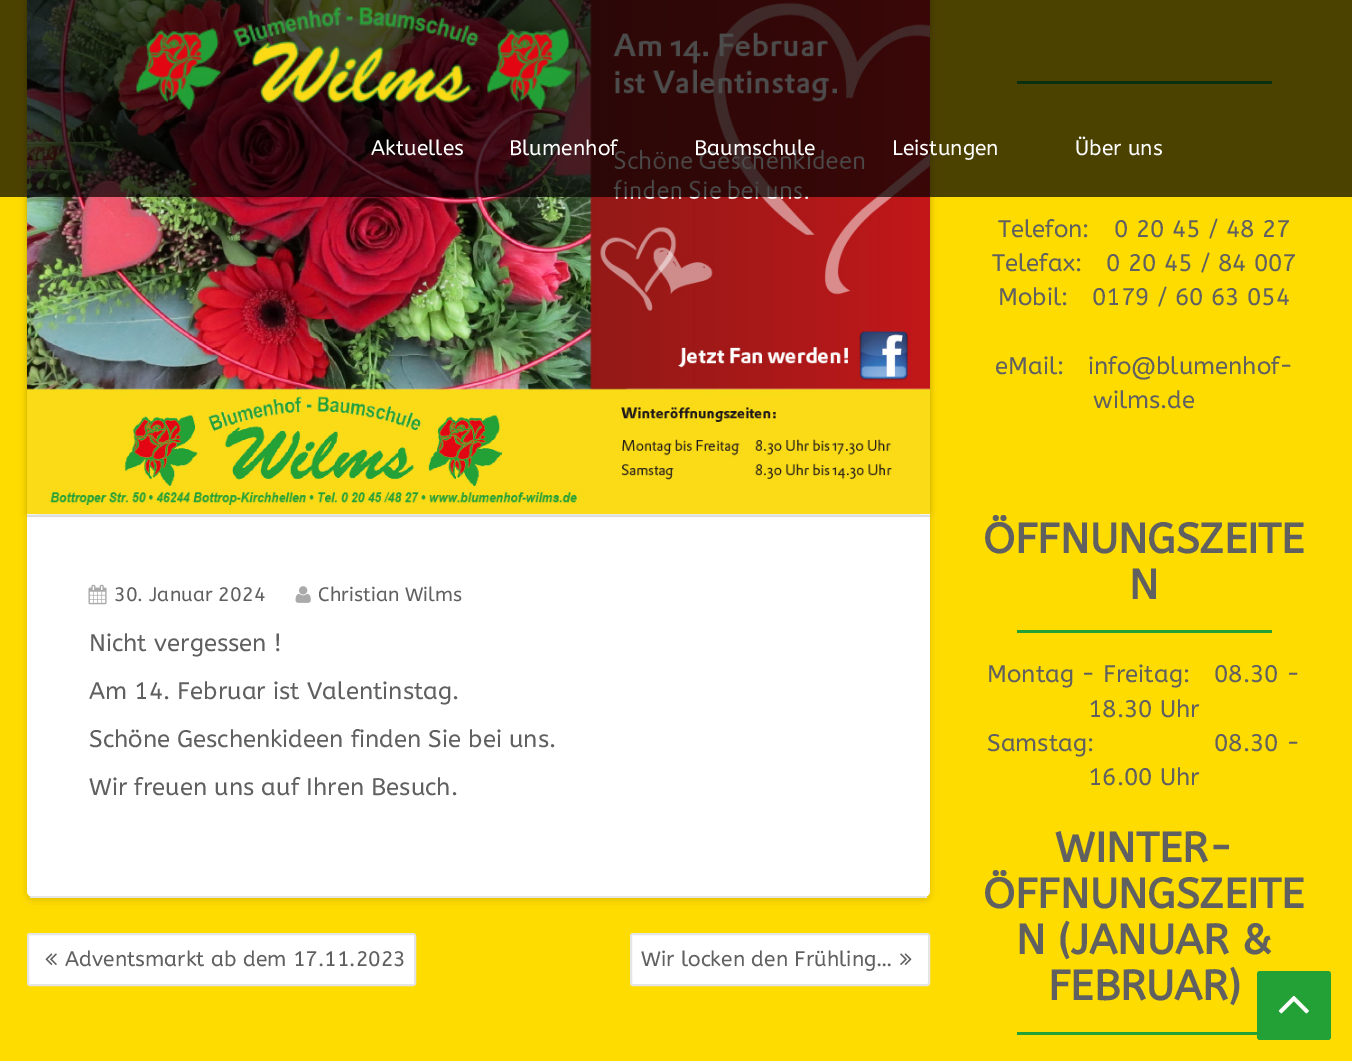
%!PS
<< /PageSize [1352 1061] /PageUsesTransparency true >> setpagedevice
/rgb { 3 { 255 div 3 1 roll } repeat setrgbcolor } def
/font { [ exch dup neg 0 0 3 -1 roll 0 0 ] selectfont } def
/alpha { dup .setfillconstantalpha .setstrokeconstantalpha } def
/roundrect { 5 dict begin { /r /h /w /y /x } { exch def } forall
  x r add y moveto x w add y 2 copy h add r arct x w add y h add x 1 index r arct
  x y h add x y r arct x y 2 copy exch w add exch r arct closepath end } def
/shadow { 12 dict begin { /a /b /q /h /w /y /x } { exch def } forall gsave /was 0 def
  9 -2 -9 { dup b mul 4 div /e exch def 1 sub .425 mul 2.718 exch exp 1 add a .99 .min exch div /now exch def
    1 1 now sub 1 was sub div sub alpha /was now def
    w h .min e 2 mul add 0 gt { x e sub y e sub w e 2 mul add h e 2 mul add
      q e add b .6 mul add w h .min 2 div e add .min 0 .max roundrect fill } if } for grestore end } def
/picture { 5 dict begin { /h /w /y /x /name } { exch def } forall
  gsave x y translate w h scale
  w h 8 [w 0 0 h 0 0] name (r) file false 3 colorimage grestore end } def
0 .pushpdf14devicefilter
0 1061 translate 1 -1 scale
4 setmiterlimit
255 220 0 rgb
0 0 1352 1061 rectfill
0 0 0 rgb
27 -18 903 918 6 4 0.13 shadow
255 255 255 rgb
27 -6 903 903 6 roundrect fill
0 0 0 rgb
27 -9 891 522 0 3 0.13 shadow
39 -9 891 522 0 3 0.13 shadow
(img/2.rgb) 27 0 903 514 picture
35 161 55 rgb
1017 81 255 3 rectfill
0.7 alpha
0 0 0 rgb
0 0 1352 197 rectfill
1 alpha
(img/1.rgb) 136 7 436 103 picture
229 229 229 rgb
30 896 897 2 rectfill
221 221 221 rgb
27 515 903 2 rectfill
(img/3.rgb) 88 584 19 21 picture
(img/4.rgb) 295 586 16 17 picture
255 255 255 rgb
28 934 387 51 2 roundrect gsave fill grestore
229 229 229 rgb
2 setlinewidth
stroke
(img/5.rgb) 45 953 12 12 picture
255 255 255 rgb
631 934 298 51 2 roundrect gsave fill grestore
229 229 229 rgb
stroke
(img/6.rgb) 900 953 12 12 picture
35 161 55 rgb
1017 630 255 3 rectfill
1017 1032 240 3 rectfill
1257 971 74 69 3 roundrect fill
(img/7.rgb) 1278 995 31 19 picture
/ABeeZee-Regular 21 font
255 255 255 rgb
[
  [(Aktuelles) 371 155]
  [(Blumenhof) 509 155]
  [(Baumschule) 694 155]
  [(Leistungen) 892 155]
  [(Über uns) 1075 155]
] { aload pop moveto show } forall
/ABeeZee-Regular 19.5 font
96 96 96 rgb
114 601 moveto (30. Januar 2024) show
318 601 moveto (Christian Wilms) show
/ABeeZee-Regular 24 font
[
  [(Nicht vergessen !) 89 651]
  [(Am 14. Februar ist Valentinstag.) 89 699]
  [(Schöne Geschenkideen finden Sie bei uns.) 89 747]
  [(Wir freuen uns auf Ihren Besuch.) 89 795]
] { aload pop moveto show } forall
/ABeeZee-Regular 21 font
65 966 moveto (Adventsmarkt ab dem 17.11.2023) show
641 966 moveto (Wir locken den Frühling…) show
/ABeeZee-Regular 24 font
[
  [(Telefon:) 998 237]
  [(0 20 45 / 48 27) 1114 237]
  [(Telefax:) 992 271]
  [(0 20 45 / 84 007) 1106 271]
  [(Mobil:) 998 305]
  [(0179 / 60 63 054) 1092 305]
  [(eMail:) 995 374]
  [(info@blumenhof-) 1088 374]
  [(wilms.de) 1093 408]
] { aload pop moveto show } forall
/ABeeZee-Bold 42 font
983 553 moveto (ÖFFNUNGSZEITE) show
1129 599 moveto (N) show
/ABeeZee-Regular 24 font
[
  [(Montag - Freitag:) 987 682]
  [(08.30 -) 1214 682]
  [(18.30 Uhr) 1088 717]
  [(Samstag:) 987 751]
  [(08.30 -) 1214 751]
  [(16.00 Uhr) 1088 785]
] { aload pop moveto show } forall
/ABeeZee-Bold 42 font
[
  [(WINTER-) 1055 862]
  [(ÖFFNUNGSZEITE) 983 908]
  [(N \(JANUAR &) 1016 954]
  [(FEBRUAR\)) 1048 1000]
] { aload pop moveto show } forall
.poppdf14devicefilter showpage
